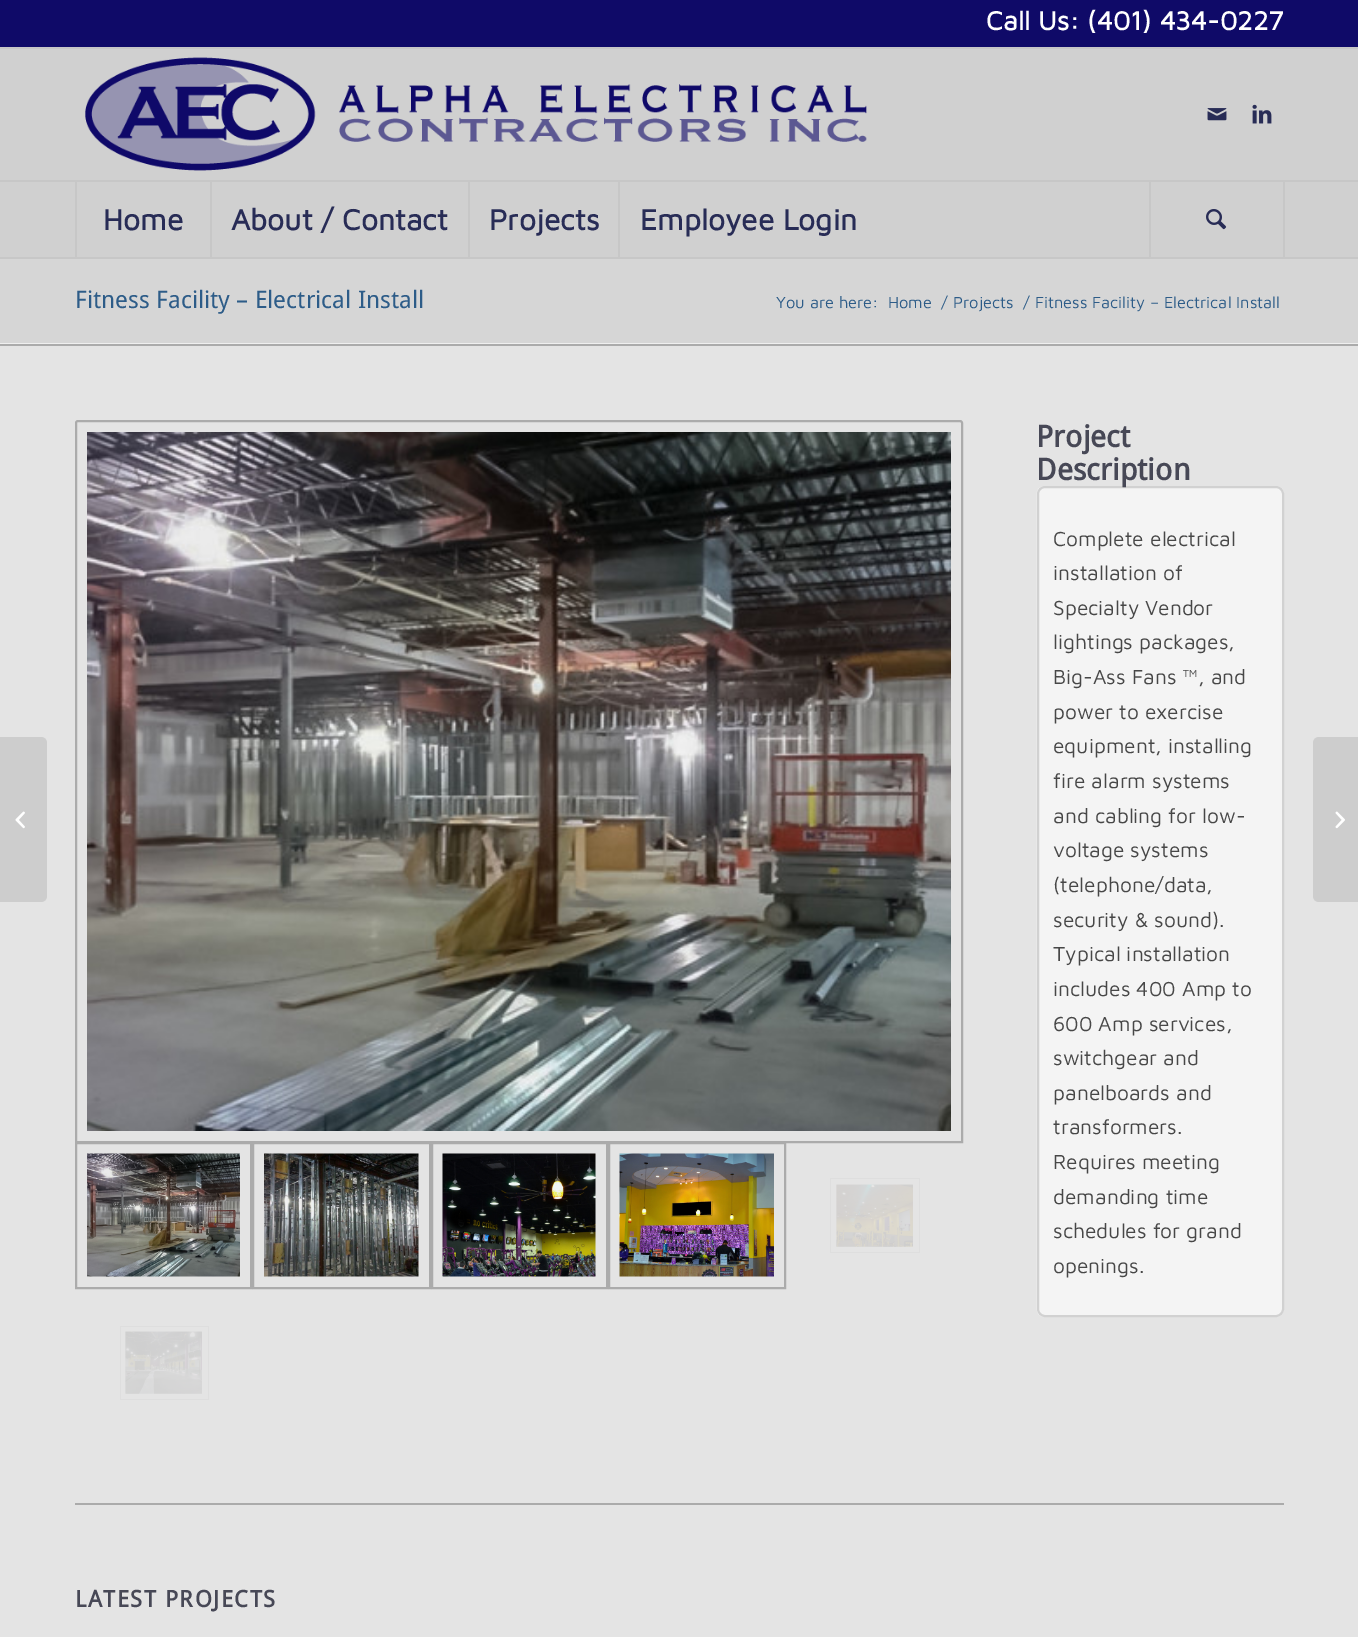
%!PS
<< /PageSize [1358 1637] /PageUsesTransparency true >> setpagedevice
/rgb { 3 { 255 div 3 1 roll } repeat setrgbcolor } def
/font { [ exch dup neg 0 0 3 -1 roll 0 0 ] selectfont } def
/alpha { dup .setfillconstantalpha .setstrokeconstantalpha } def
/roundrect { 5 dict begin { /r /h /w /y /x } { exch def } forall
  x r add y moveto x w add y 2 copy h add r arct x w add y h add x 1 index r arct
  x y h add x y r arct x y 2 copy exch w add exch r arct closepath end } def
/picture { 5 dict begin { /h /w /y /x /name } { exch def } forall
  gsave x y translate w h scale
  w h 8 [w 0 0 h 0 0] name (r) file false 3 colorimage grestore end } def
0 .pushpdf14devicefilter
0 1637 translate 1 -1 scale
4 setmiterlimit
187 187 187 rgb
0 0 1358 1637 rectfill
[
  [0 0 1358 47 15 10 104]
  [0 47 1358 2 199 199 199]
  [0 49 1358 208 208 208 208]
  [0 257 1358 2 199 199 199]
] { aload pop rgb rectfill } forall
(img/1.rgb) 85 57 782 114 picture
(img/2.rgb) 1207 108 20 13 picture
(img/3.rgb) 1252 104 20 20 picture
[
  [0 180 1358 2 199 199 199]
  [75 182 2 75 199 199 199]
  [210 182 2 75 199 199 199]
  [468 182 2 75 199 199 199]
  [618 182 2 75 199 199 199]
  [1283 182 2 75 199 199 199]
  [1149 182 2 75 199 199 199]
] { aload pop rgb rectfill } forall
(img/4.rgb) 1206 209 21 21 picture
214 214 214 rgb
0 259 1358 85 rectfill
0.6 alpha
255 255 255 rgb
0 343 1358 1294 rectfill
1 alpha
205 205 205 rgb
0 737 moveto 41 737 lineto 44.5 737 47 739.5 47 743 curveto 47 896 lineto 47 899.5 44.5 902 41 902 curveto 0 902 lineto closepath fill
(img/5.rgb) 15 811 10 18 picture
171 171 171 rgb
0 344 1358 2 rectfill
2 setlinewidth
78 421 moveto 960 421 lineto 961 421 962 422 962 423 curveto 962 1142 lineto 76 1142 lineto 76 423 lineto 76 422 77 421 78 421 curveto closepath stroke
(img/6.rgb) 87 432 864 699 picture
76 1143 175 145 rectstroke
(img/7.rgb) 87 1153 153 124 picture
253 1143 177 145 rectstroke
(img/8.rgb) 264 1153 155 124 picture
432 1143 175 145 rectstroke
(img/9.rgb) 442 1153 154 124 picture
609 1143 176 145 rectstroke
(img/10.rgb) 619 1153 155 124 picture
222 222 222 rgb
0.8 setlinewidth
830.4 1178.4 89.2 74.2 rectstroke
(img/11.rgb) 836 1184 77 63 picture
120.4 1326.4 88.2 73.2 rectstroke
(img/12.rgb) 125 1331 77 63 picture
(img/13.rgb) 1036 486 248 831 picture
209 209 209 rgb
2 setlinewidth
1038 487 245 829 7 roundrect stroke
171 171 171 rgb
75 1503 1209 2 rectfill
205 205 205 rgb
1319 737 moveto 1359 737 lineto 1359 902 lineto 1319 902 lineto 1315.5 902 1313 899.5 1313 896 curveto 1313 743 lineto 1313 739.5 1315.5 737 1319 737 curveto closepath fill
(img/14.rgb) 1335 811 10 18 picture
/MavenPro-Bold 27 font
255 255 255 rgb
986 30 moveto (Call Us: \(401\) 434-0227) show
/MavenPro-Bold 30 font
40 44 86 rgb
[
  [(Home) 103 230]
  [(About / Contact) 231 230]
  [(Projects) 489 230]
  [(Employee Login) 640 230]
] { aload pop moveto show } forall
/DroidSans-Regular 24 font
45 92 136 rgb
75 308 moveto (Fitness Facility – Electrical Install) show
/MavenPro-Regular 16.5 font
[
  [(You are here:) 776 308]
  [(Home) 888 308]
  [(/) 941 308]
  [(Projects) 953 308]
  [(/) 1023 308]
  [(Fitness Facility – Electrical Install) 1035 308]
] { aload pop moveto show } forall
/DroidSans-Bold 30 font
71 72 86 rgb
1036 447 moveto (Project) show
1036 480 moveto (Description) show
/MavenPro-Regular 21 font
71 71 71 rgb
[
  [(Complete electrical) 1053 546]
  [(installation of) 1053 580]
  [(Specialty Vendor) 1053 615]
  [(lightings packages,) 1053 649]
  [(Big-Ass Fans ™, and) 1053 684]
  [(power to exercise) 1053 719]
  [(equipment, installing) 1053 753]
  [(fire alarm systems) 1053 788]
  [(and cabling for low-) 1053 823]
  [(voltage systems) 1053 857]
  [(\(telephone/data,) 1053 892]
  [(security & sound\).) 1053 927]
  [(Typical installation) 1053 961]
  [(includes 400 Amp to) 1053 996]
  [(600 Amp services,) 1053 1031]
  [(switchgear and) 1053 1065]
  [(panelboards and) 1053 1100]
  [(transformers.) 1053 1134]
  [(Requires meeting) 1053 1169]
  [(demanding time) 1053 1204]
  [(schedules for grand) 1053 1238]
  [(openings.) 1053 1273]
] { aload pop moveto show } forall
/DroidSans-Bold 23 font
71 72 86 rgb
75 1607 moveto 1.5 0 (LATEST PROJECTS) ashow
.poppdf14devicefilter showpage
